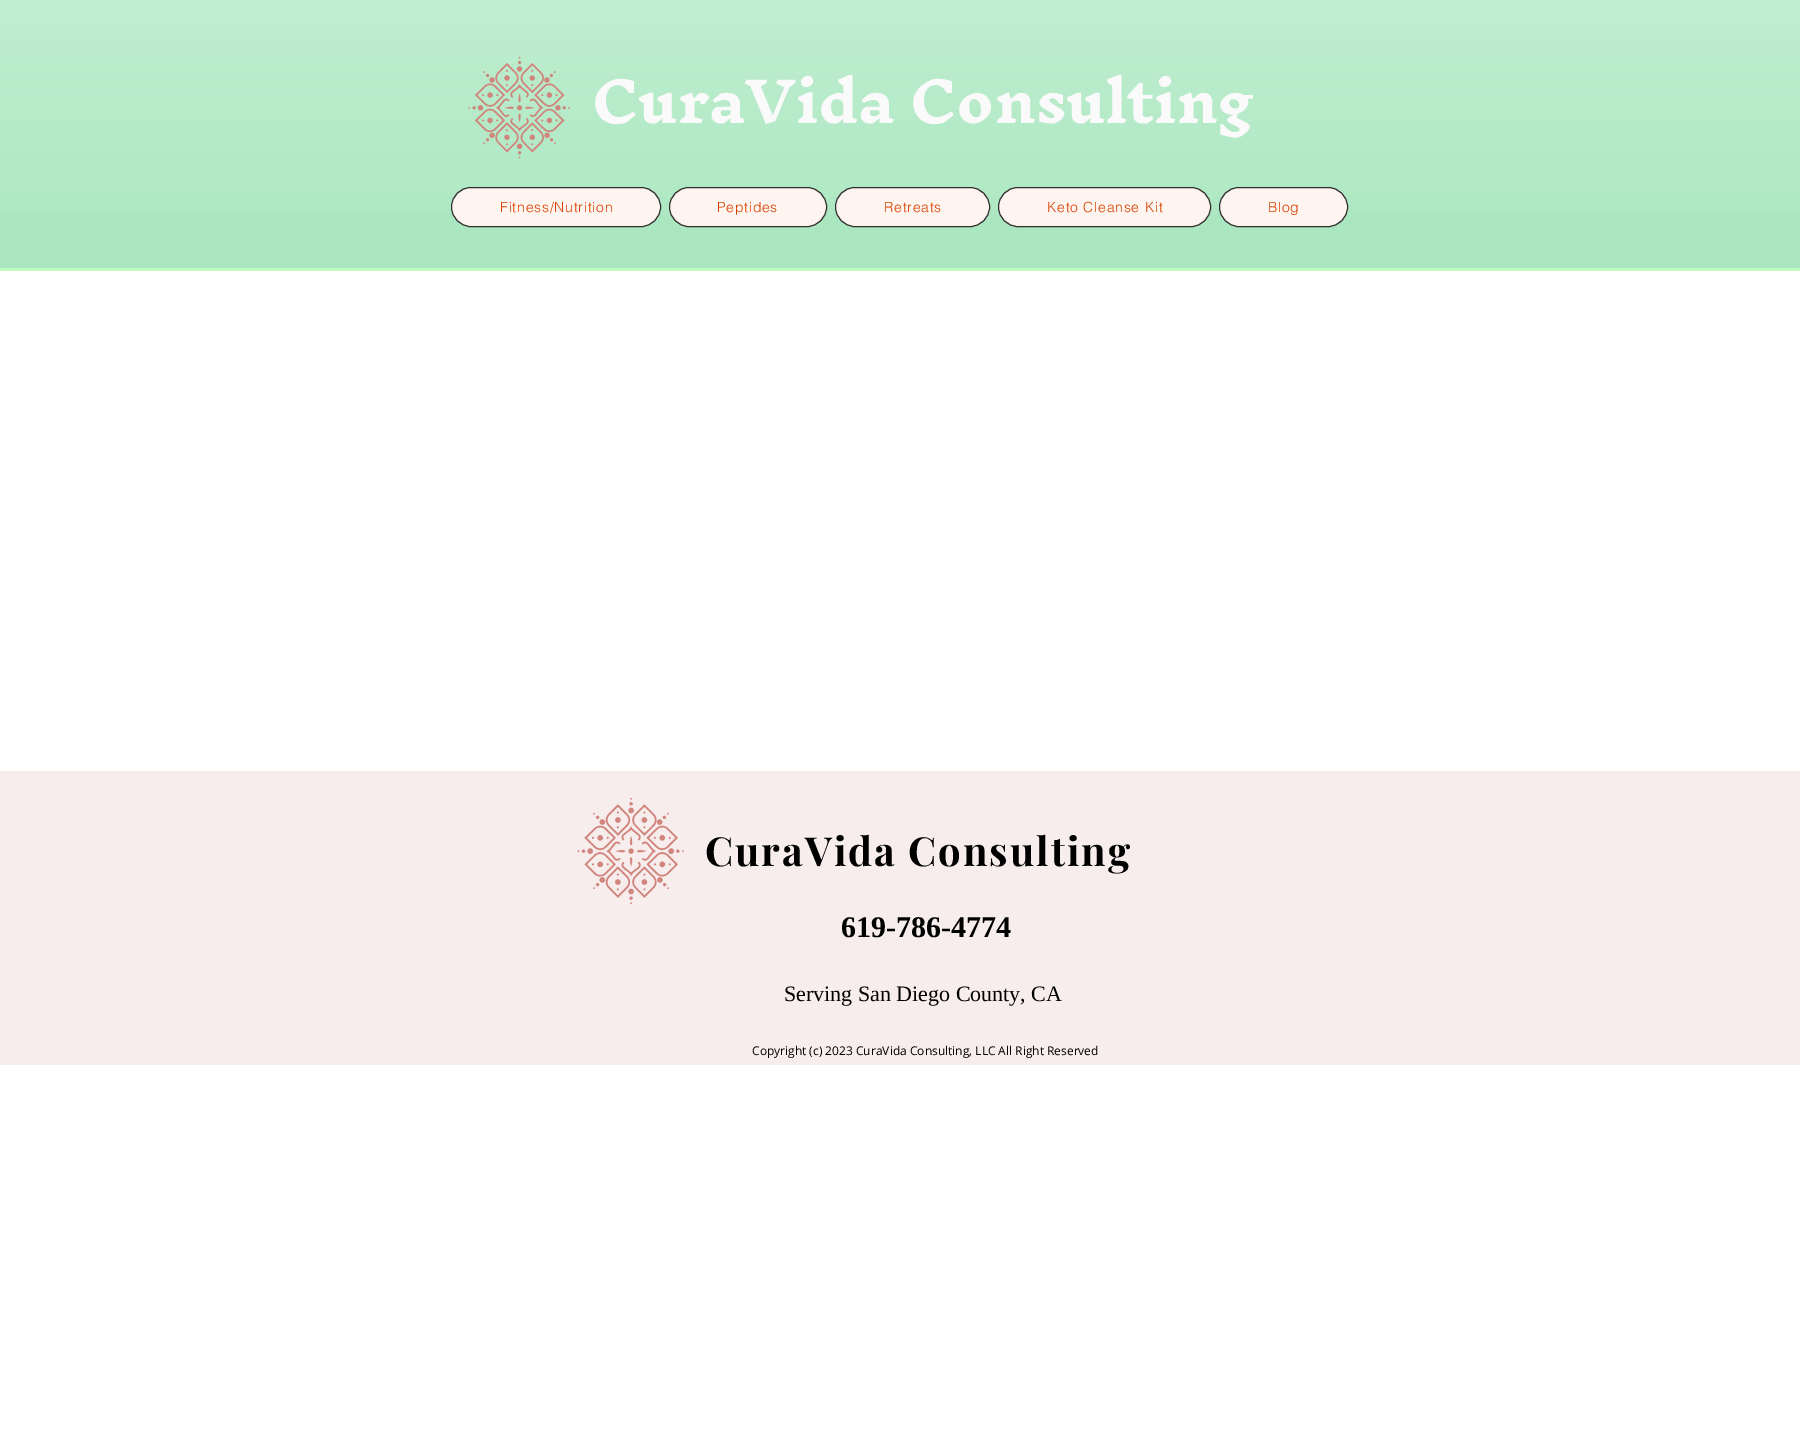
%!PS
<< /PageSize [1800 1445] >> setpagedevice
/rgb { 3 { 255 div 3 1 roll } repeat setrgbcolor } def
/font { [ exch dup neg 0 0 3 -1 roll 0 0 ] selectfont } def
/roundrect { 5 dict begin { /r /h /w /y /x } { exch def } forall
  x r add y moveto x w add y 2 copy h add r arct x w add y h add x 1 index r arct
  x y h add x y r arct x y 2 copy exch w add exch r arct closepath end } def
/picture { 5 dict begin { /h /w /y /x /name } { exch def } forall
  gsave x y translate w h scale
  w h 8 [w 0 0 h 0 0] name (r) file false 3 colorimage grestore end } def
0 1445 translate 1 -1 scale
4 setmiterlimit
255 255 255 rgb
0 0 1800 1445 rectfill
170 231 192 rgb
0 0 1800 268 rectfill
(img/1.rgb) 0 0 1800 215 picture
(img/2.rgb) 468 56 102 103 picture
255 245 240 rgb
451.5 187.5 209 39 19.5 roundrect gsave fill grestore
49 47 47 rgb
stroke
255 245 240 rgb
669.5 187.5 157 39 19.5 roundrect gsave fill grestore
49 47 47 rgb
stroke
255 245 240 rgb
835.5 187.5 154 39 19.5 roundrect gsave fill grestore
49 47 47 rgb
stroke
255 245 240 rgb
998.5 187.5 212 39 19.5 roundrect gsave fill grestore
49 47 47 rgb
stroke
255 245 240 rgb
1219.5 187.5 128 39 19.5 roundrect gsave fill grestore
49 47 47 rgb
stroke
194 252 192 rgb
0 268 1800 3 rectfill
247 237 237 rgb
0 771 1800 294 rectfill
(img/3.rgb) 577 797 107 108 picture
/InknutAntiqua-Bold 55 font
250 250 250 rgb
592 123 moveto (CuraVida Consulting) show
/helvetica-Light 14 font
215 64 0 rgb
500 212 moveto 0.75 0 (Fitness/Nutrition) ashow
717 212 moveto 0.75 0 (Peptides) ashow
884 212 moveto 0.75 0 (Retreats) ashow
1047 212 moveto 0.75 0 (Keto Cleanse Kit) ashow
1268 212 moveto 0.75 0 (Blog) ashow
/PlayfairDisplay-Bold 40 font
0 0 0 rgb
705 866 moveto 2 0 (CuraVida Consulting) ashow
/LiberationSerif-Bold 30 font
841 937 moveto (619-786-4774) show
/LiberationSerif-Regular 22 font
784 1001 moveto (Serving San Diego County, CA) show
/OpenSans-Regular 12 font
752 1055 moveto (Copyright \(c\) 2023 CuraVida Consulting, LLC All Right Reserved) show
showpage
